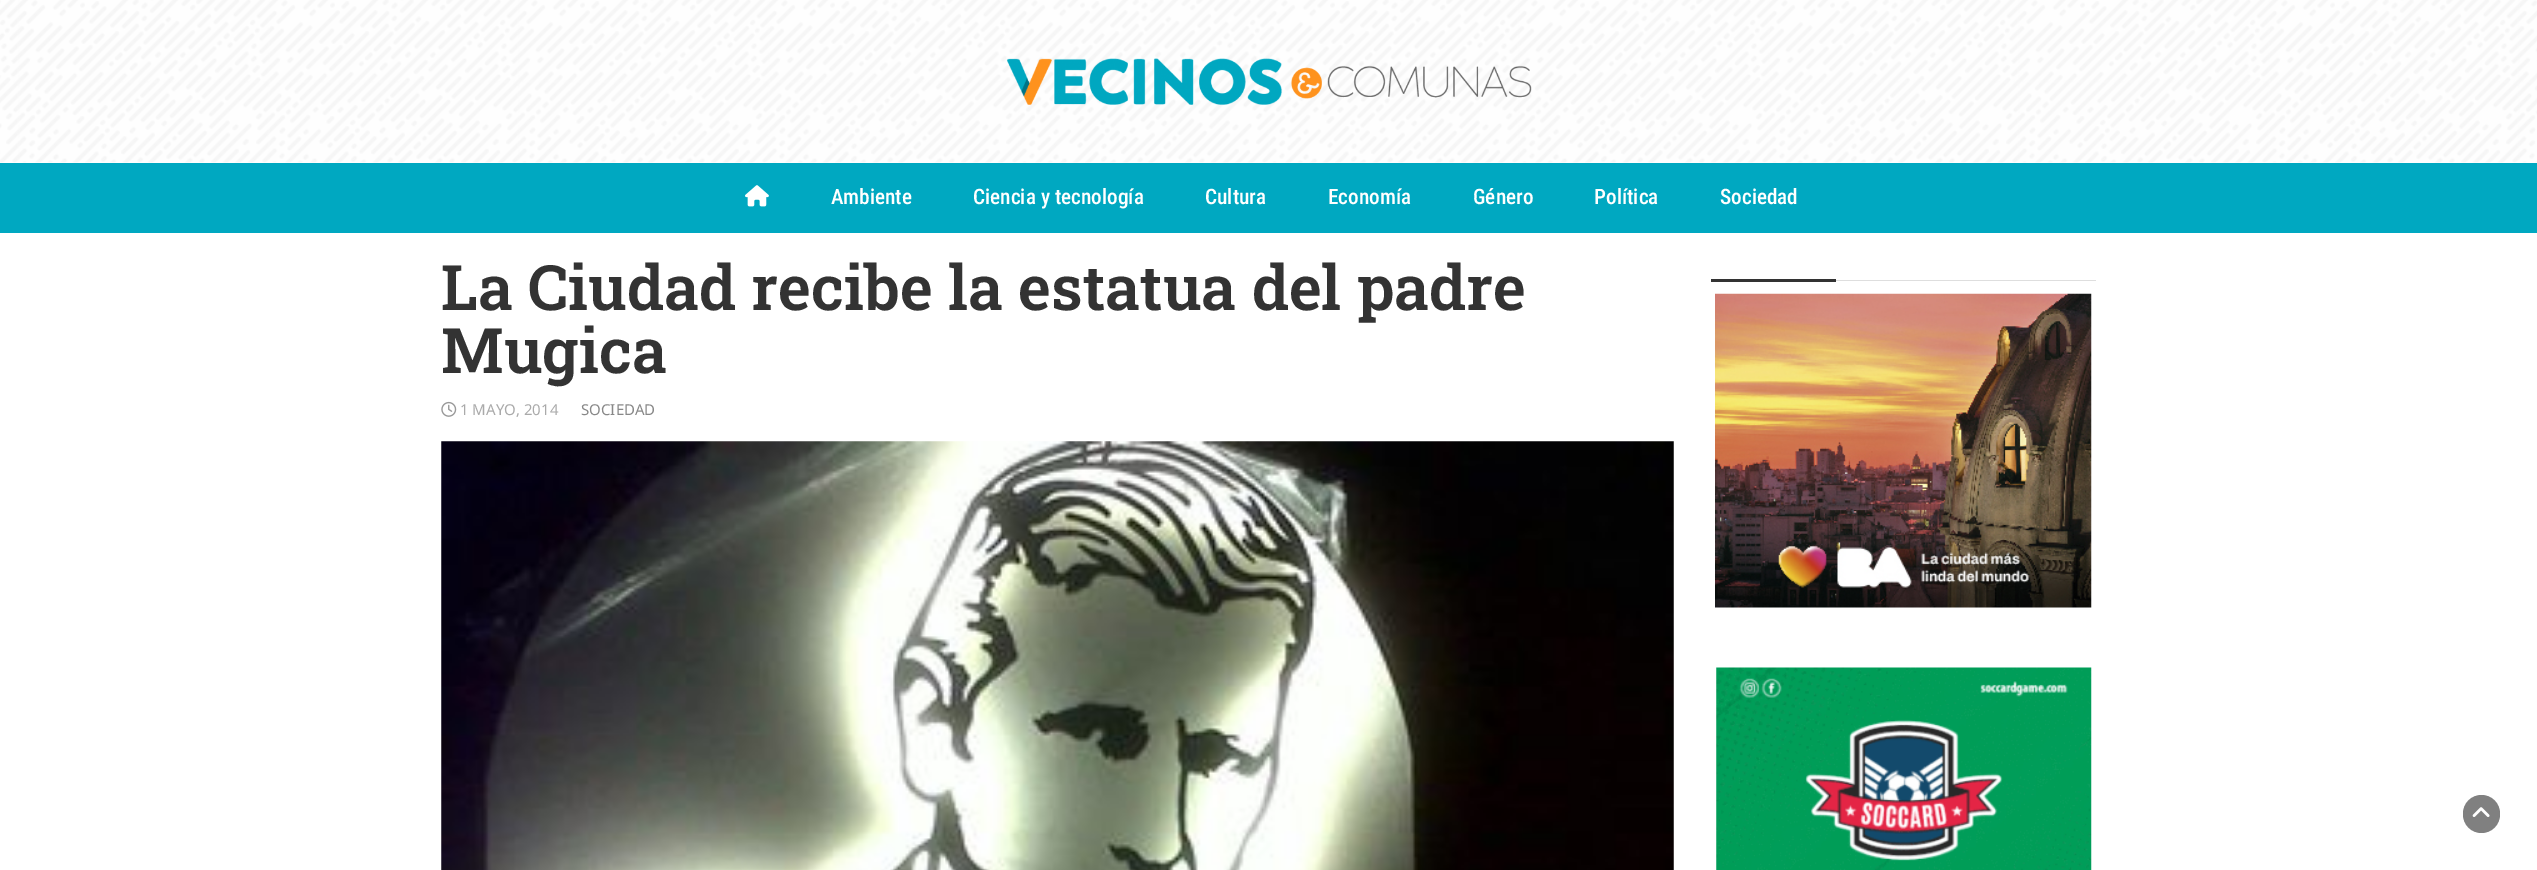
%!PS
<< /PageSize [2537 870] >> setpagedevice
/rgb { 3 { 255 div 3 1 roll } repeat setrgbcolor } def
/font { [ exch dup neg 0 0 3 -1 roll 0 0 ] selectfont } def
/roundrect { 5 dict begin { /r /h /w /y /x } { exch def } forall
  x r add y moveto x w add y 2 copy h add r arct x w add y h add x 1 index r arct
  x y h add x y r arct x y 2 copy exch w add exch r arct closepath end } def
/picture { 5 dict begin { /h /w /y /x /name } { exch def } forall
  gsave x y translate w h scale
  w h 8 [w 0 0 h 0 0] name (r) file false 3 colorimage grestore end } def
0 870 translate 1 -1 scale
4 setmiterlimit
255 255 255 rgb
0 0 2537 870 rectfill
(img/1.rgb) 0 0 2537 163 picture
(img/2.rgb) 1006 58 526 47 picture
0 168 193 rgb
0 163 2537 70 rectfill
(img/3.rgb) 745 185 24 22 picture
(img/4.rgb) 441 401 16 16 picture
(img/5.rgb) 441 441 1233 429 picture
222 222 222 rgb
1836 280 260 1 rectfill
51 51 51 rgb
1711 279 125 3 rectfill
(img/6.rgb) 1715 293 377 315 picture
(img/7.rgb) 1716 667 376 203 picture
128 128 128 rgb
2463 795 37 38 18.5 roundrect fill
(img/8.rgb) 2472 807 18 10 picture
/RobotoCondensed-Medium 21.25 font
255 255 255 rgb
[
  [(Ambiente) 831 204]
  [(Ciencia y tecnología) 973 204]
  [(Cultura) 1205 204]
  [(Economía) 1328 204]
  [(Género) 1473 204]
  [(Política) 1594 204]
  [(Sociedad) 1720 204]
] { aload pop moveto show } forall
/RobotoSlab-SemiBold 62.5 font
51 51 51 rgb
441 310 moveto (La Ciudad recibe la estatua del padre) show
441 373 moveto (Mugica) show
/NotoSans-Regular 15 font
170 170 170 rgb
460 415 moveto (1 MAYO, 2014) show
136 136 136 rgb
581 415 moveto (SOCIEDAD) show
showpage
